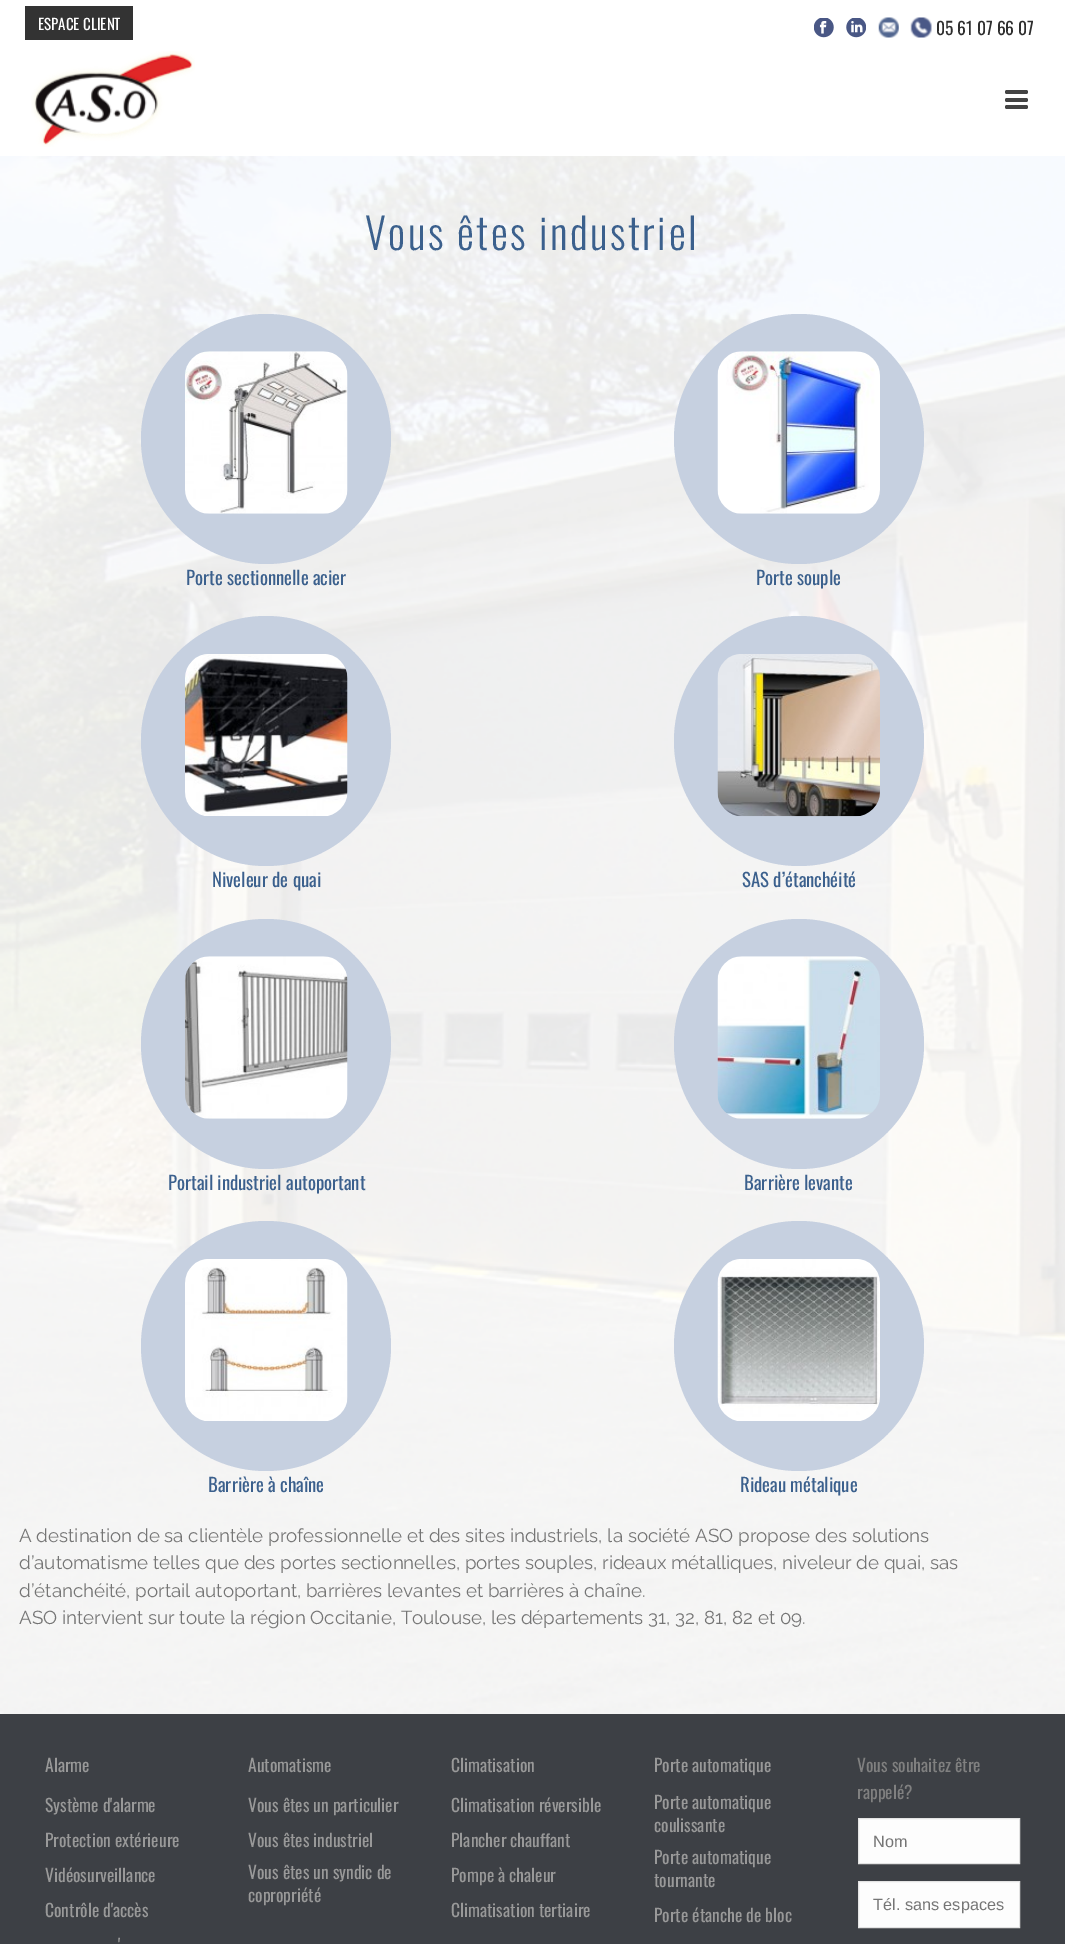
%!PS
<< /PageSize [1065 1944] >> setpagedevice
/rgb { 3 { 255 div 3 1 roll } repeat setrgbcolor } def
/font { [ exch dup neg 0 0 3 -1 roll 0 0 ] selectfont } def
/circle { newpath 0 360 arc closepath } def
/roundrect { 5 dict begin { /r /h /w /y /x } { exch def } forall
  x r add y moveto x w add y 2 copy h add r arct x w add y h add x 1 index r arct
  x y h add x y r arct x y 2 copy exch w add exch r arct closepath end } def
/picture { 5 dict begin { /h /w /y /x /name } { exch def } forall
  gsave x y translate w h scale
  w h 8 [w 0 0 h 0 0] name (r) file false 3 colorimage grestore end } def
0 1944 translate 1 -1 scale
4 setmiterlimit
255 255 255 rgb
0 0 1065 1944 rectfill
(img/1.rgb) 0 156 1065 1558 picture
51 51 51 rgb
25 6 108 34 rectfill
(img/2.rgb) 814 18 20 20 picture
(img/3.rgb) 846 18 20 20 picture
(img/4.rgb) 878 17 21 21 picture
(img/5.rgb) 910 17 22 21 picture
(img/6.rgb) 31 51 164 96 picture
68 68 68 rgb
1005 90 23 4 2 roundrect fill
1005 98 23 4 2 roundrect fill
1005 105 23 4 2 roundrect fill
198 208 224 rgb
266 439 125 circle fill
(img/7.rgb) 185 351 163 163 picture
799 439 125 circle fill
(img/8.rgb) 717 351 163 163 picture
266 741 125 circle fill
(img/9.rgb) 185 654 163 162 picture
799 741 125 circle fill
(img/10.rgb) 717 654 163 163 picture
266 1044 125 circle fill
(img/11.rgb) 185 956 163 163 picture
799 1044 125 circle fill
(img/12.rgb) 717 956 163 163 picture
266 1346 125 circle fill
(img/13.rgb) 185 1259 163 162 picture
799 1346 125 circle fill
(img/14.rgb) 717 1259 163 162 picture
61 64 69 rgb
0 1714 1065 230 rectfill
253 253 253 rgb
858.5 1818.5 moveto 1019.5 1818.5 lineto 1019.5 1863.5 lineto 858.5 1863.5 lineto closepath gsave fill grestore
227 227 227 rgb
stroke
253 253 253 rgb
858.5 1881.5 moveto 1019.5 1881.5 lineto 1019.5 1927.5 lineto 858.5 1927.5 lineto closepath gsave fill grestore
227 227 227 rgb
stroke
/Oswald-Regular 15 font
255 255 255 rgb
38 30 moveto (ESPACE CLIENT) show
/Oswald-Regular 17.5 font
46 46 46 rgb
936 35 moveto (05 61 07 66 07) show
/Oswald-Light 42.5 font
59 96 141 rgb
365 250 moveto 2.5 0 (Vous êtes industriel) ashow
/Oswald-Regular 18.75 font
[
  [(Porte sectionnelle acier) 186 585]
  [(Porte souple) 756 585]
  [(Niveleur de quai) 212 887]
  [(SAS d’étanchéité) 742 887]
  [(Portail industriel autoportant) 168 1190]
  [(Barrière levante) 744 1190]
  [(Barrière à chaîne) 208 1492]
  [(Rideau métalique) 740 1492]
] { aload pop moveto show } forall
/Raleway-Regular 18.75 font
117 117 117 rgb
[
  [(A destination de sa clientèle professionnelle et des sites industriels, la société ASO propose des solutions) 19 1542]
  [(d’automatisme telles que des portes sectionnelles, portes souples, rideaux métalliques, niveleur de quai, sas) 19 1569]
  [(d’étanchéité, portail autoportant, barrières levantes et barrières à chaîne.) 19 1597]
  [(ASO intervient sur toute la région Occitanie, Toulouse, les départements 31, 32, 81, 82 et 09.) 19 1624]
] { aload pop moveto show } forall
/Oswald-Regular 17.5 font
153 153 153 rgb
[
  [(Alarme) 45 1772]
  [(Système d'alarme) 45 1812]
  [(Protection extérieure) 45 1847]
  [(Vidéosurveillance) 45 1882]
  [(Contrôle d'accès) 45 1917]
  [(') 118 1952]
  [(Automatisme) 248 1772]
  [(Vous êtes un particulier) 248 1812]
  [(Vous êtes industriel) 248 1847]
  [(Vous êtes un syndic de) 248 1879]
  [(copropriété) 248 1902]
  [(Climatisation) 451 1772]
  [(Climatisation réversible) 451 1812]
  [(Plancher chauffant) 451 1847]
  [(Pompe à chaleur) 451 1882]
  [(Climatisation tertiaire) 451 1917]
  [(Porte automatique) 654 1772]
  [(Porte automatique) 654 1809]
  [(coulissante) 654 1832]
  [(Porte automatique) 654 1864]
  [(tournante) 654 1887]
  [(Porte étanche de bloc) 654 1922]
] { aload pop moveto show } forall
128 128 128 rgb
857 1772 moveto (Vous souhaitez être) show
857 1799 moveto (rappelé?) show
/LiberationSans-Regular 16.25 font
117 117 117 rgb
873 1847 moveto (Nom) show
873 1910 moveto (Tél. sans espaces) show
showpage
